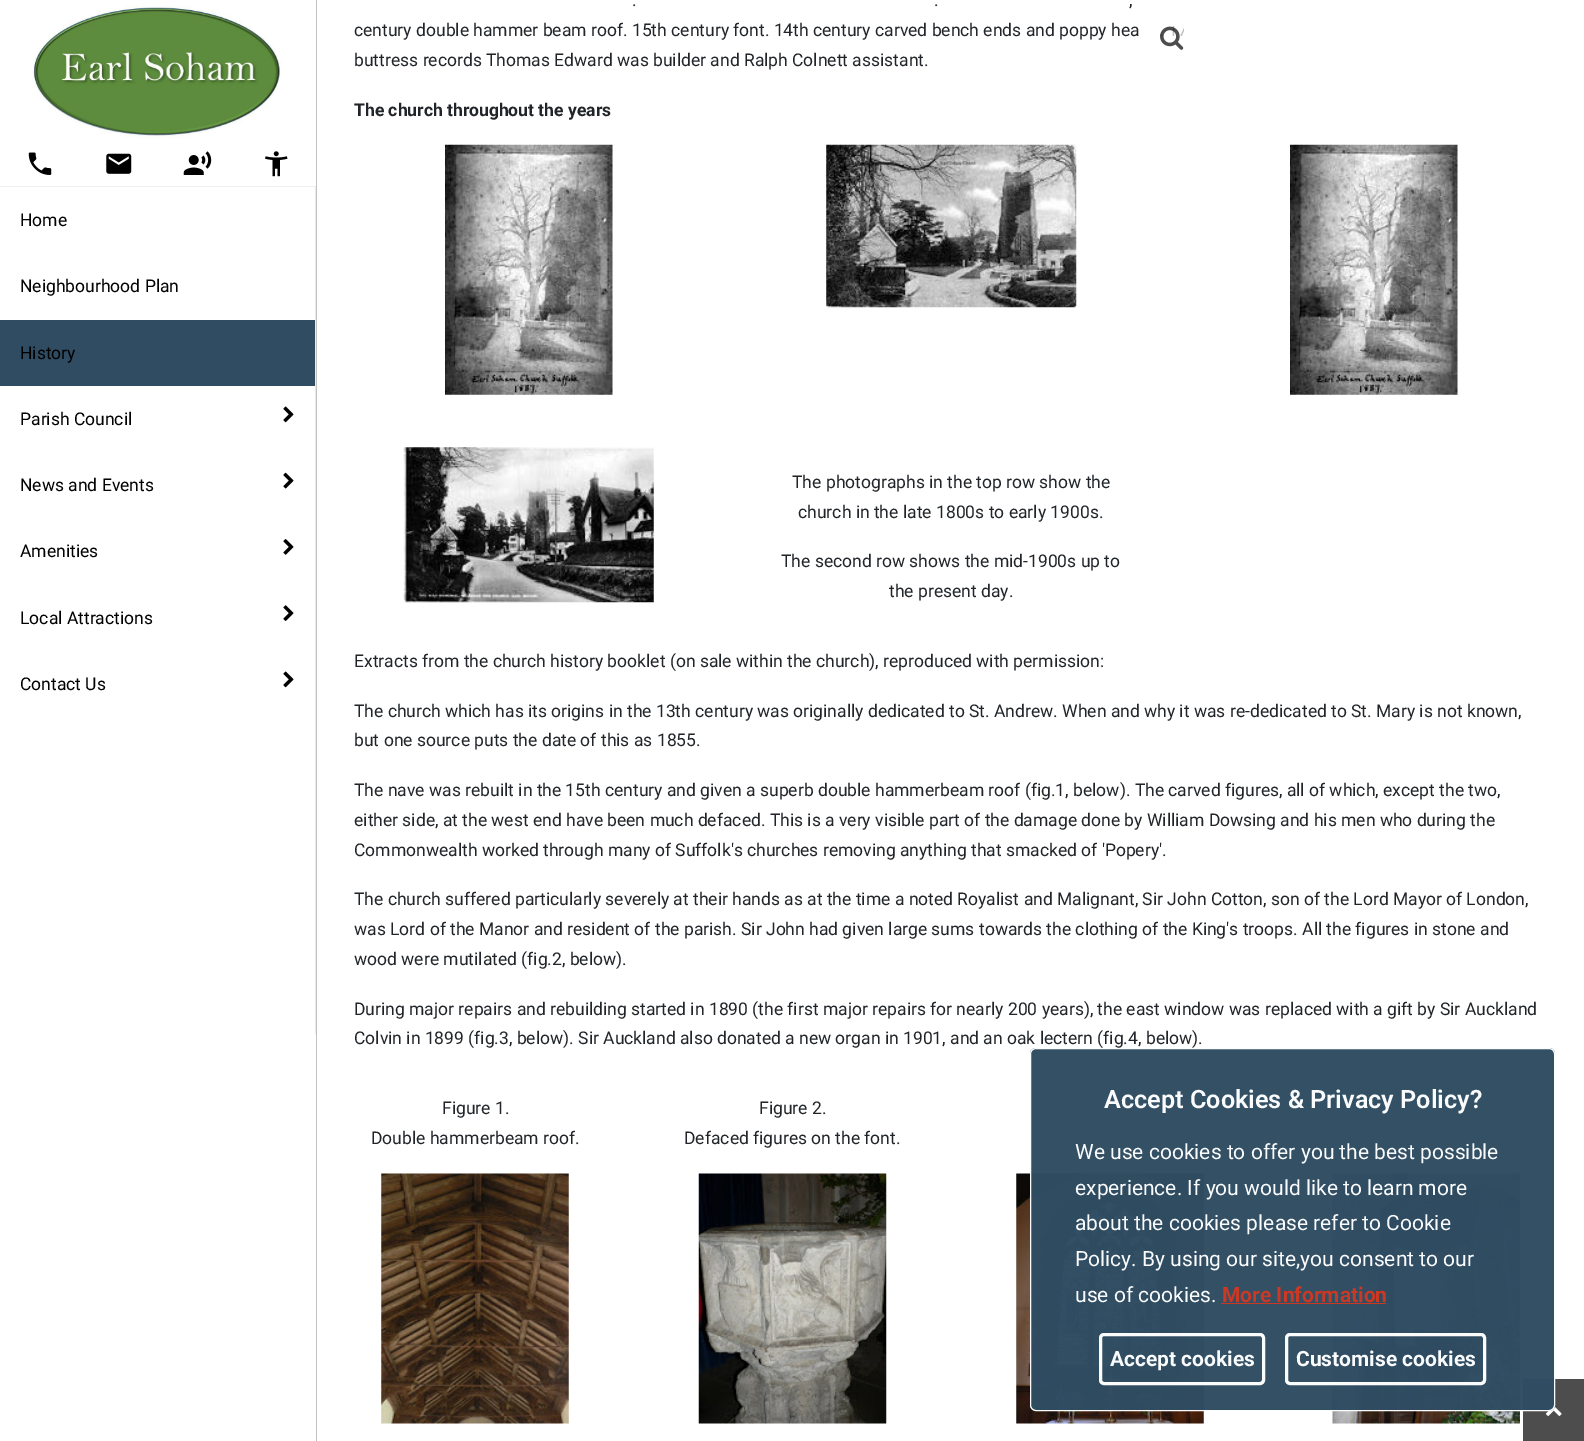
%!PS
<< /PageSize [1584 1441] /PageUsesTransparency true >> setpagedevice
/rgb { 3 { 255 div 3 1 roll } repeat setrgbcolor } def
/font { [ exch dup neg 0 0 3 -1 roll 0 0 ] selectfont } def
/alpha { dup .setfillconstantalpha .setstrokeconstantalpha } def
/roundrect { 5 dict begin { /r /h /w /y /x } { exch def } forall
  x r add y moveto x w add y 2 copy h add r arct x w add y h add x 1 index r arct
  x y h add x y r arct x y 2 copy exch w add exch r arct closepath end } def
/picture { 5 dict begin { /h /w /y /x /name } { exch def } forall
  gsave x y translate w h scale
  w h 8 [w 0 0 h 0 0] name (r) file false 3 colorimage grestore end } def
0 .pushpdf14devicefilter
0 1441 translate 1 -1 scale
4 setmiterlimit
255 255 255 rgb
0 0 1584 1441 rectfill
(img/1.rgb) 445 144 168 251 picture
(img/2.rgb) 826 144 251 164 picture
(img/3.rgb) 1290 144 168 251 picture
(img/4.rgb) 403 447 251 156 picture
(img/5.rgb) 381 1173 188 251 picture
(img/6.rgb) 698 1173 189 251 picture
(img/7.rgb) 1016 1173 188 251 picture
(img/8.rgb) 1332 1173 188 251 picture
(img/9.rgb) 1160 26 24 24 picture
194 194 194 rgb
316 0 1 1441 rectfill
(img/10.rgb) 32 5 250 133 picture
(img/11.rgb) 28 152 24 23 picture
(img/12.rgb) 106 153 26 21 picture
(img/13.rgb) 183 151 29 24 picture
(img/14.rgb) 265 151 23 26 picture
[
  [0 186 316 1 239 239 239]
  [315 186 1 848 234 234 234]
  [0 320 315 66 47 76 98]
] { aload pop rgb rectfill } forall
(img/15.rgb) 283 406 11 17 picture
(img/16.rgb) 283 472 11 17 picture
(img/17.rgb) 283 539 11 16 picture
(img/18.rgb) 283 605 11 16 picture
(img/15.rgb) 283 671 11 17 picture
77 77 77 rgb
1523 1379 61 62 rectfill
(img/19.rgb) 1545 1406 17 10 picture
0.98 alpha
47 76 98 rgb
1030 1048 525 363 6 roundrect fill
255 255 255 rgb
1030.5 1048.5 524 362 5.5 roundrect stroke
207 55 33 rgb
1221 1303 165 1 rectfill
255 255 255 rgb
3 setlinewidth
1100.5 1334.5 163 49 3.5 roundrect stroke
1286.5 1334.5 198 49 3.5 roundrect stroke
/Roboto-Regular 17.5 font
1 alpha
33 37 41 rgb
[
  [(.) 632 6]
  [(.) 934 6]
  [(,) 1129 6]
  [(century double hammer beam roof. 15th century font. 14th century carved bench ends and poppy hea) 354 36]
  [(buttress records Thomas Edward was builder and Ralph Colnett assistant.) 354 66]
] { aload pop moveto show } forall
/Roboto-Bold 17.5 font
354 116 moveto (The church throughout the years) show
/Roboto-Regular 17.5 font
[
  [(The photographs in the top row show the) 792 488]
  [(church in the late 1800s to early 1900s.) 798 518]
  [(The second row shows the mid-1900s up to) 781 567]
  [(the present day.) 889 597]
  [(Extracts from the church history booklet \(on sale within the church\), reproduced with permission:) 354 667]
  [(The church which has its origins in the 13th century was originally dedicated to St. Andrew. When and why it was re-dedicated to St. Mary is not known,) 354 717]
  [(but one source puts the date of this as 1855.) 354 746]
  [(The nave was rebuilt in the 15th century and given a superb double hammerbeam roof \(fig.1, below\). The carved figures, all of which, except the two,) 354 796]
  [(either side, at the west end have been much defaced. This is a very visible part of the damage done by William Dowsing and his men who during the) 354 826]
  [(Commonwealth worked through many of Suffolk's churches removing anything that smacked of 'Popery'.) 354 856]
  [(The church suffered particularly severely at their hands as at the time a noted Royalist and Malignant, Sir John Cotton, son of the Lord Mayor of London,) 354 905]
  [(was Lord of the Manor and resident of the parish. Sir John had given large sums towards the clothing of the King's troops. All the figures in stone and) 354 935]
  [(wood were mutilated \(fig.2, below\).) 354 965]
  [(During major repairs and rebuilding started in 1890 \(the first major repairs for nearly 200 years\), the east window was replaced with a gift by Sir Auckland) 354 1015]
  [(Colvin in 1899 \(fig.3, below\). Sir Auckland also donated a new organ in 1901, and an oak lectern \(fig.4, below\).) 354 1044]
  [(Figure 1.) 442 1114]
  [(Double hammerbeam roof.) 371 1144]
  [(Figure 2.) 759 1114]
  [(Defaced figures on the font.) 684 1144]
] { aload pop moveto show } forall
0 0 0 rgb
[
  [(Home) 20 226]
  [(Neighbourhood Plan) 20 292]
  [(History) 20 359]
  [(Parish Council) 20 425]
  [(News and Events) 20 491]
  [(Amenities) 20 557]
  [(Local Attractions) 20 624]
  [(Contact Us) 20 690]
] { aload pop moveto show } forall
/Roboto-SemiBold 25.25 font
250 251 252 rgb
1104 1108 moveto (Accept Cookies & Privacy Policy?) show
/Roboto-Regular 21 font
[
  [(We use cookies to offer you the best possible) 1075 1159]
  [(experience. If you would like to learn more) 1075 1195]
  [(about the cookies please refer to Cookie) 1075 1230]
  [(Policy. By using our site,you consent to our) 1075 1266]
  [(use of cookies.) 1075 1302]
] { aload pop moveto show } forall
/Roboto-Bold 21 font
203 56 35 rgb
1222 1302 moveto (More Information) show
250 251 252 rgb
1110 1366 moveto (Accept cookies) show
1296 1366 moveto (Customise cookies) show
.poppdf14devicefilter showpage
